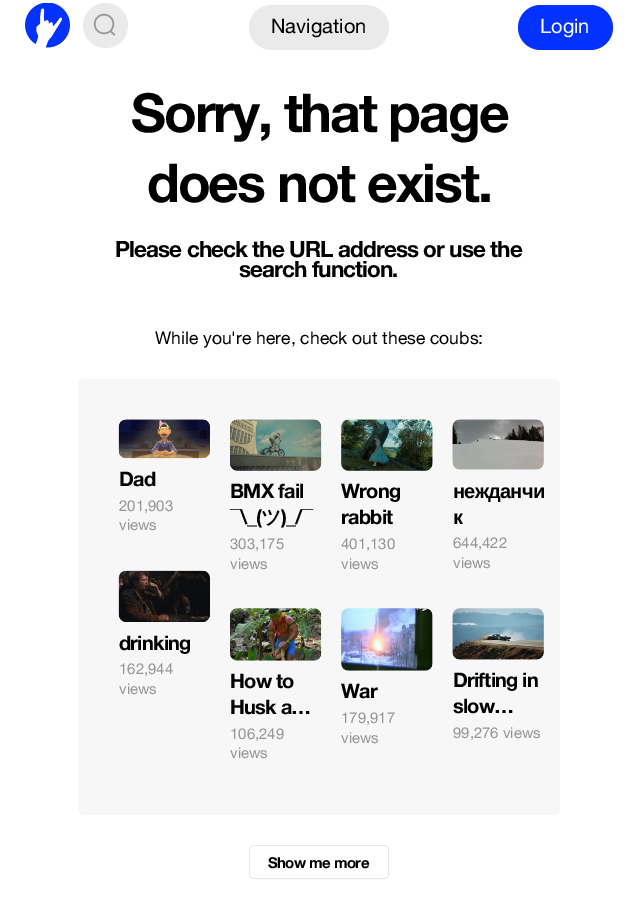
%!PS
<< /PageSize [637 913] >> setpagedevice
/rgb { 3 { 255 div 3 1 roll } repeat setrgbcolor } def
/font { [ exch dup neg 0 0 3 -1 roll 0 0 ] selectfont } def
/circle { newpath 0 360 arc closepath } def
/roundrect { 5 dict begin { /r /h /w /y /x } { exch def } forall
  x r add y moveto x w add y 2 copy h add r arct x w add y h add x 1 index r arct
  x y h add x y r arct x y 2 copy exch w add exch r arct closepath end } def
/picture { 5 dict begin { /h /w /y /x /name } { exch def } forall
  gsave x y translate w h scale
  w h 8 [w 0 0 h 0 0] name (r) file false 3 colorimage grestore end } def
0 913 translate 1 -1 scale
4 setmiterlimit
255 255 255 rgb
0 0 637 913 rectfill
(img/1.rgb) 25 3 45 45 picture
234 234 234 rgb
105.5 25.5 22.5 circle fill
(img/2.rgb) 93 13 23 23 picture
249 5 140 45 22.5 roundrect fill
3 50 255 rgb
518 5 95 45 22.5 roundrect fill
247 247 247 rgb
78 379 482 436 6 roundrect fill
(img/3.rgb) 118 419 92 40 picture
(img/4.rgb) 118 419 92 40 picture
(img/5.rgb) 230 419 92 52 picture
(img/6.rgb) 230 419 92 52 picture
(img/7.rgb) 341 419 92 52 picture
(img/8.rgb) 341 419 92 52 picture
(img/9.rgb) 452 419 92 51 picture
(img/10.rgb) 452 419 92 51 picture
(img/11.rgb) 118 570 92 52 picture
(img/12.rgb) 118 570 92 52 picture
(img/13.rgb) 230 608 92 53 picture
(img/14.rgb) 230 608 91 52 picture
(img/15.rgb) 341 608 92 63 picture
(img/16.rgb) 341 608 92 62 picture
(img/17.rgb) 452 608 92 52 picture
(img/18.rgb) 452 608 92 52 picture
230 230 230 rgb
249.5 845.5 139 33 4.5 roundrect stroke
255 255 255 rgb
250 846 138 32 4 roundrect fill
/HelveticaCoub-Regular 20 font
0 0 0 rgb
271 33 moveto (Navigation) show
255 255 255 rgb
540 33 moveto (Login) show
/HelveticaCoub-Bold 53.75 font
0 0 0 rgb
131 132 moveto -2.1 0 (Sorry, that page) ashow
147 202 moveto -2.1 0 (does not exist.) ashow
/HelveticaCoub-Bold 22.5 font
115 257 moveto -0.9 0 (Please check the URL address or use the) ashow
239 277 moveto -0.9 0 (search function.) ashow
/HelveticaCoub-Regular 17.5 font
155 344 moveto (While you're here, check out these coubs:) show
/HelveticaCoub-Bold 20 font
119 486 moveto -0.75 0 (Dad) ashow
/HelveticaCoub-Regular 15 font
148 148 148 rgb
119 511 moveto (201,903) show
119 530 moveto (views) show
/HelveticaCoub-Bold 20 font
0 0 0 rgb
230 498 moveto -0.75 0 (BMX fail) ashow
/LiberationSans-Bold 20 font
230 524 moveto -0.75 0 (¯) ashow
/HelveticaCoub-Bold 20 font
240 524 moveto -0.75 0 (\\_\() ashow
/WenQuanYiZenHei-Bold 20 font
261 524 moveto -0.75 0 (ツ) ashow
/HelveticaCoub-Bold 20 font
281 524 moveto -0.75 0 (\)_/) ashow
/LiberationSans-Bold 20 font
302 524 moveto -0.75 0 (¯) ashow
/HelveticaCoub-Regular 15 font
148 148 148 rgb
230 549 moveto (303,175) show
230 569 moveto (views) show
/HelveticaCoub-Bold 20 font
0 0 0 rgb
341 498 moveto -0.75 0 (Wrong) ashow
341 524 moveto -0.75 0 (rabbit) ashow
/HelveticaCoub-Regular 15 font
148 148 148 rgb
341 549 moveto (401,130) show
341 569 moveto (views) show
/LiberationSans-Bold 20 font
0 0 0 rgb
453 498 moveto -0.75 0 (нежданчи) ashow
453 524 moveto -0.75 0 (к) ashow
/HelveticaCoub-Regular 15 font
148 148 148 rgb
453 548 moveto (644,422) show
453 568 moveto (views) show
/HelveticaCoub-Bold 20 font
0 0 0 rgb
119 650 moveto -0.75 0 (drinking) ashow
/HelveticaCoub-Regular 15 font
148 148 148 rgb
119 674 moveto (162,944) show
119 694 moveto (views) show
/HelveticaCoub-Bold 20 font
0 0 0 rgb
230 688 moveto -0.75 0 (How to) ashow
230 714 moveto -0.75 0 (Husk a…) ashow
/HelveticaCoub-Regular 15 font
148 148 148 rgb
230 739 moveto (106,249) show
230 758 moveto (views) show
/HelveticaCoub-Bold 20 font
0 0 0 rgb
341 698 moveto -0.75 0 (War) ashow
/HelveticaCoub-Regular 15 font
148 148 148 rgb
341 723 moveto (179,917) show
341 743 moveto (views) show
/HelveticaCoub-Bold 20 font
0 0 0 rgb
453 687 moveto -0.75 0 (Drifting in) ashow
453 713 moveto -0.75 0 (slow…) ashow
/HelveticaCoub-Regular 15 font
148 148 148 rgb
453 738 moveto (99,276 views) show
/HelveticaCoub-Bold 15 font
0 0 0 rgb
268 868 moveto -0.6 0 (Show me more) ashow
showpage
